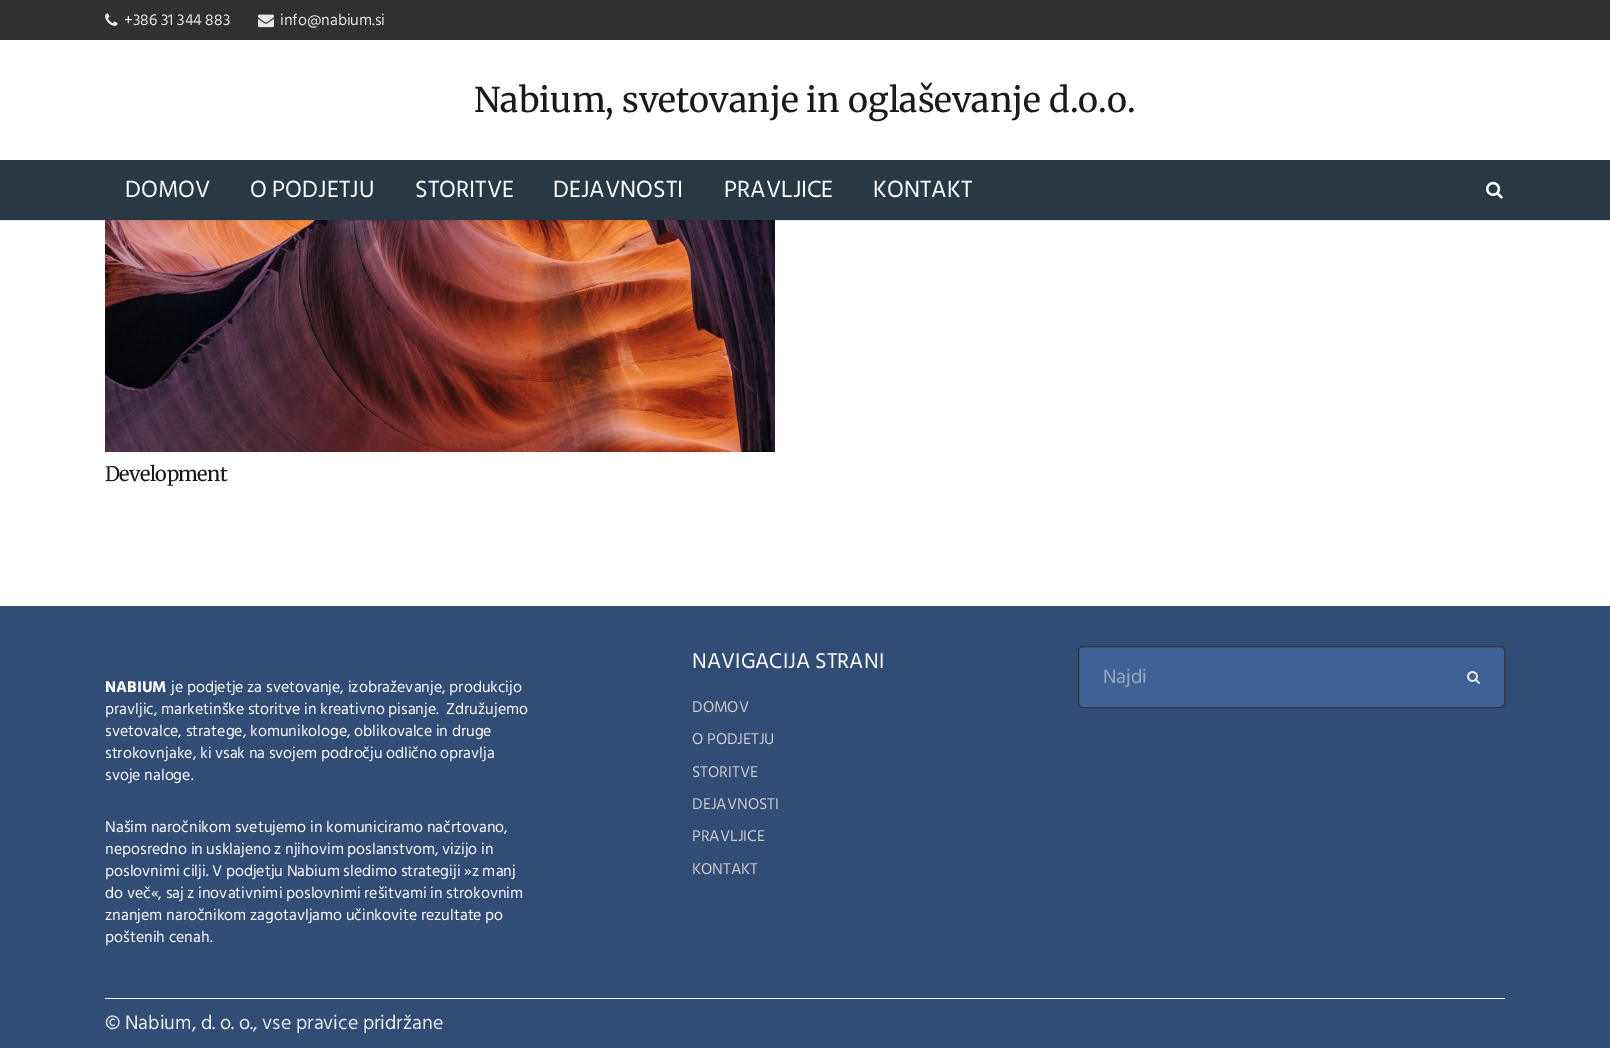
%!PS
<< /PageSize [1610 1048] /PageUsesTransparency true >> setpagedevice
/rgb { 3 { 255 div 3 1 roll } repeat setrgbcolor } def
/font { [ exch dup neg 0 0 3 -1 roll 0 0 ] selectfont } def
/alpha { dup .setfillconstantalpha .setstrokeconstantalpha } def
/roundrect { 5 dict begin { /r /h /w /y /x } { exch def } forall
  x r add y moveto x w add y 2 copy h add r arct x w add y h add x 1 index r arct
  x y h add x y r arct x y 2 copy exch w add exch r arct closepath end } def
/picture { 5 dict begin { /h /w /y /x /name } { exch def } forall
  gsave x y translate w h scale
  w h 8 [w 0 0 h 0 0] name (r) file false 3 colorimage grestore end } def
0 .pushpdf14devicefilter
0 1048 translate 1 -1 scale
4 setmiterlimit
255 255 255 rgb
0 0 1610 1048 rectfill
48 48 48 rgb
0 0 1610 40 rectfill
(img/1.rgb) 105 13 13 13 picture
(img/2.rgb) 258 14 16 14 picture
(img/4.rgb) 105 220 670 232 picture
0.08 alpha
0 0 0 rgb
0 220 1610 1 rectfill
1 alpha
40 56 69 rgb
0 160 1610 60 rectfill
(img/3.rgb) 1486 181 17 18 picture
49 76 117 rgb
0 606 1610 442 rectfill
63 98 150 rgb
1078.5 646.5 426 61 4.5 roundrect gsave fill grestore
51 51 51 rgb
stroke
(img/5.rgb) 1467 671 13 13 picture
255 255 255 rgb
105 998 1400 1 rectfill
/HindSiliguri-Regular 16 font
232 232 232 rgb
124 25 moveto (+386 31 344 883) show
280 25 moveto (info@nabium.si) show
/Merriweather-Regular 34.1 font
26 26 26 rgb
474 112 moveto (Nabium, svetovanje in oglaševanje d.o.o.) show
/HindSiliguri-Regular 24 font
255 255 255 rgb
[
  [(DOMOV) 125 197]
  [(O PODJETJU) 250 197]
  [(STORITVE) 415 197]
  [(DEJAVNOSTI) 553 197]
  [(PRAVLJICE) 724 197]
  [(KONTAKT) 873 197]
] { aload pop moveto show } forall
/Merriweather-Regular 20 font
26 26 26 rgb
105 481 moveto -0.6 0 (Development) ashow
/HindSiliguri-Regular 22 font
255 255 255 rgb
692 668 moveto (NAVIGACIJA STRANI) show
/HindSiliguri-Regular 16 font
204 204 204 rgb
[
  [(DOMOV) 692 712]
  [(O PODJETJU) 692 744]
  [(STORITVE) 692 777]
  [(DEJAVNOSTI) 692 809]
  [(PRAVLJICE) 692 841]
  [(KONTAKT) 692 874]
] { aload pop moveto show } forall
/HindSiliguri-Regular 20 font
148 165 191 rgb
1103 683 moveto (Najdi) show
/HindSiliguri-Bold 16 font
255 255 255 rgb
105 692 moveto (NABIUM) show
/HindSiliguri-Regular 16 font
[
  [(je podjetje za svetovanje, izobraževanje, produkcijo) 171 692]
  [(pravljic, marketinške storitve in kreativno pisanje.  Združujemo) 105 714]
  [(svetovalce, stratege, komunikologe, oblikovalce in druge) 105 736]
  [(strokovnjake, ki vsak na svojem področju odlično opravlja) 105 758]
  [(svoje naloge.) 105 780]
  [(Našim naročnikom svetujemo in komuniciramo načrtovano,) 105 832]
  [(neposredno in usklajeno z njihovim poslanstvom, vizijo in) 105 854]
  [(poslovnimi cilji. V podjetju Nabium sledimo strategiji »z manj) 105 876]
  [(do več«, saj z inovativnimi poslovnimi rešitvami in strokovnim) 105 898]
  [(znanjem naročnikom zagotavljamo učinkovite rezultate po) 105 920]
  [(poštenih cenah.) 105 942]
] { aload pop moveto show } forall
/HindSiliguri-Regular 20 font
232 232 232 rgb
105 1029 moveto (© Nabium, d. o. o., vse pravice pridržane) show
.poppdf14devicefilter showpage
